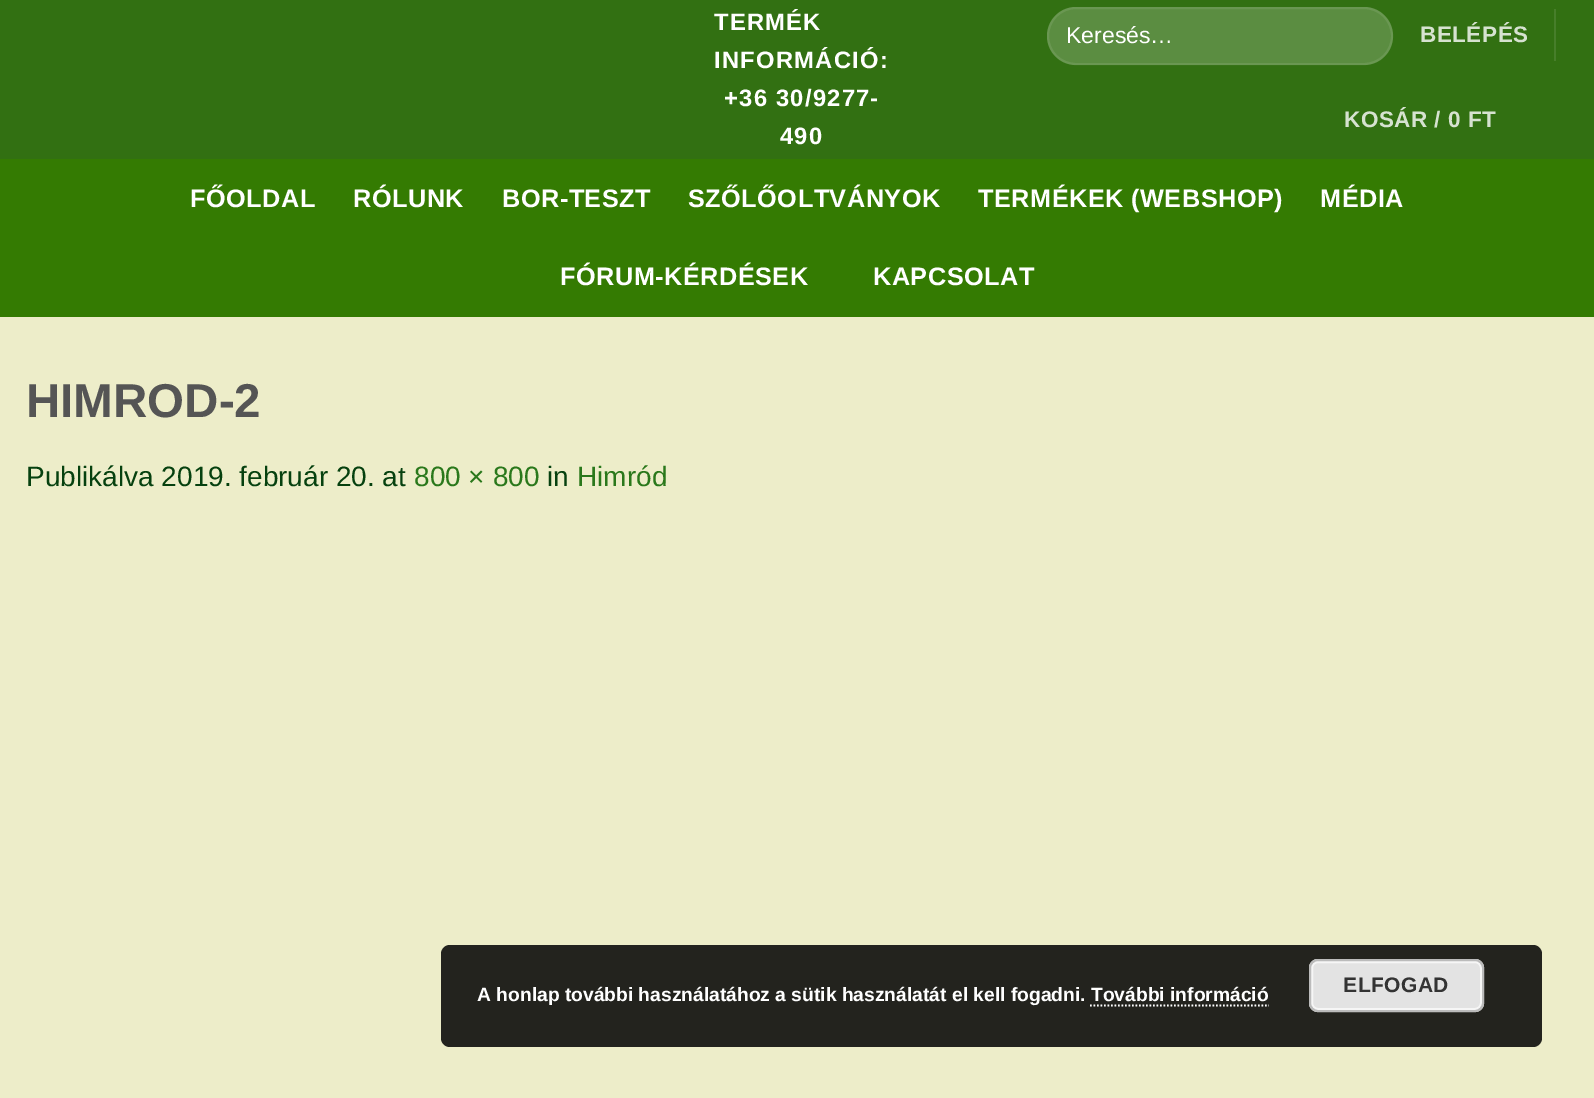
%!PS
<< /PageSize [1594 1098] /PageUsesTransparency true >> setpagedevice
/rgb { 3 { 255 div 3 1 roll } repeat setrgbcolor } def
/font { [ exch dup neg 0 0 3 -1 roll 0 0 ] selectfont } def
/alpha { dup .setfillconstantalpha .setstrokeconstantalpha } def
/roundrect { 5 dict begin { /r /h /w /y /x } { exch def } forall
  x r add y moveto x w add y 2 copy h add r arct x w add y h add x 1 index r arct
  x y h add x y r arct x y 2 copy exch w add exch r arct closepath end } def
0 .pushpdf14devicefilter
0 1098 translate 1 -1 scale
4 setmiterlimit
237 237 201 rgb
0 0 1594 1098 rectfill
50 112 18 rgb
0 0 1594 159 rectfill
91 141 65 rgb
1047 7 346 58 29 roundrect fill
0.09 alpha
255 255 255 rgb
2 setlinewidth
1048 8 344 56 28 roundrect stroke
1 alpha
71 126 42 rgb
1554 9 2 52 rectfill
52 123 2 rgb
0 159 1594 158 rectfill
35 35 30 rgb
441 945 1101 102 9 roundrect fill
227 227 227 rgb
1309 959 175 53 9 roundrect fill
246 246 246 rgb
1312 962 169 47 6 roundrect stroke
187 187 187 rgb
1310 960 173 51 8 roundrect stroke
255 255 255 rgb
1.8 setlinewidth
[1.75 1.75] 0 setdash
1090 1005.5 moveto 1269 1005.5 lineto stroke
/LiberationSans-Bold 23.75 font
714 30 moveto 1.25 0 (TERMÉK) ashow
714 68 moveto 1.25 0 (INFORMÁCIÓ:) ashow
724 106 moveto 1.25 0 (+36 30/9277-) ashow
780 144 moveto 1.25 0 (490) ashow
/LiberationSans-Regular 23 font
1066 43 moveto (Keresés…) show
/LiberationSans-Bold 22.5 font
214 226 208 rgb
1420 42 moveto 0.5 0 (BELÉPÉS) ashow
1344 127 moveto 0.5 0 (KOSÁR / 0 FT) ashow
/LiberationSans-Bold 25.25 font
255 255 255 rgb
190 207 moveto 0.5 0 (FŐOLDAL) ashow
353 207 moveto 0.5 0 (RÓLUNK) ashow
502 207 moveto 0.5 0 (BOR-TESZT) ashow
688 207 moveto 0.5 0 (SZŐLŐOLTVÁNYOK) ashow
978 207 moveto 0.5 0 (TERMÉKEK \(WEBSHOP\)) ashow
1320 207 moveto 0.5 0 (MÉDIA) ashow
560 285 moveto 0.5 0 (FÓRUM-KÉRDÉSEK) ashow
873 285 moveto 0.5 0 (KAPCSOLAT) ashow
/LiberationSans-Bold 47.5 font
85 85 85 rgb
26 417 moveto (HIMROD-2) show
/LiberationSans-Regular 28 font
6 65 15 rgb
26 486 moveto (Publikálva 2019. február 20. at) show
42 120 27 rgb
414 486 moveto (800 × 800) show
6 65 15 rgb
547 486 moveto (in) show
42 120 27 rgb
577 486 moveto (Himród) show
/LiberationSans-Bold 19.25 font
255 255 255 rgb
477 1001 moveto (A honlap további használatához a sütik használatát el kell fogadni. További információ) show
/LiberationSans-Bold 21 font
51 51 51 rgb
1343 992 moveto 0.5 0 (ELFOGAD) ashow
.poppdf14devicefilter showpage
